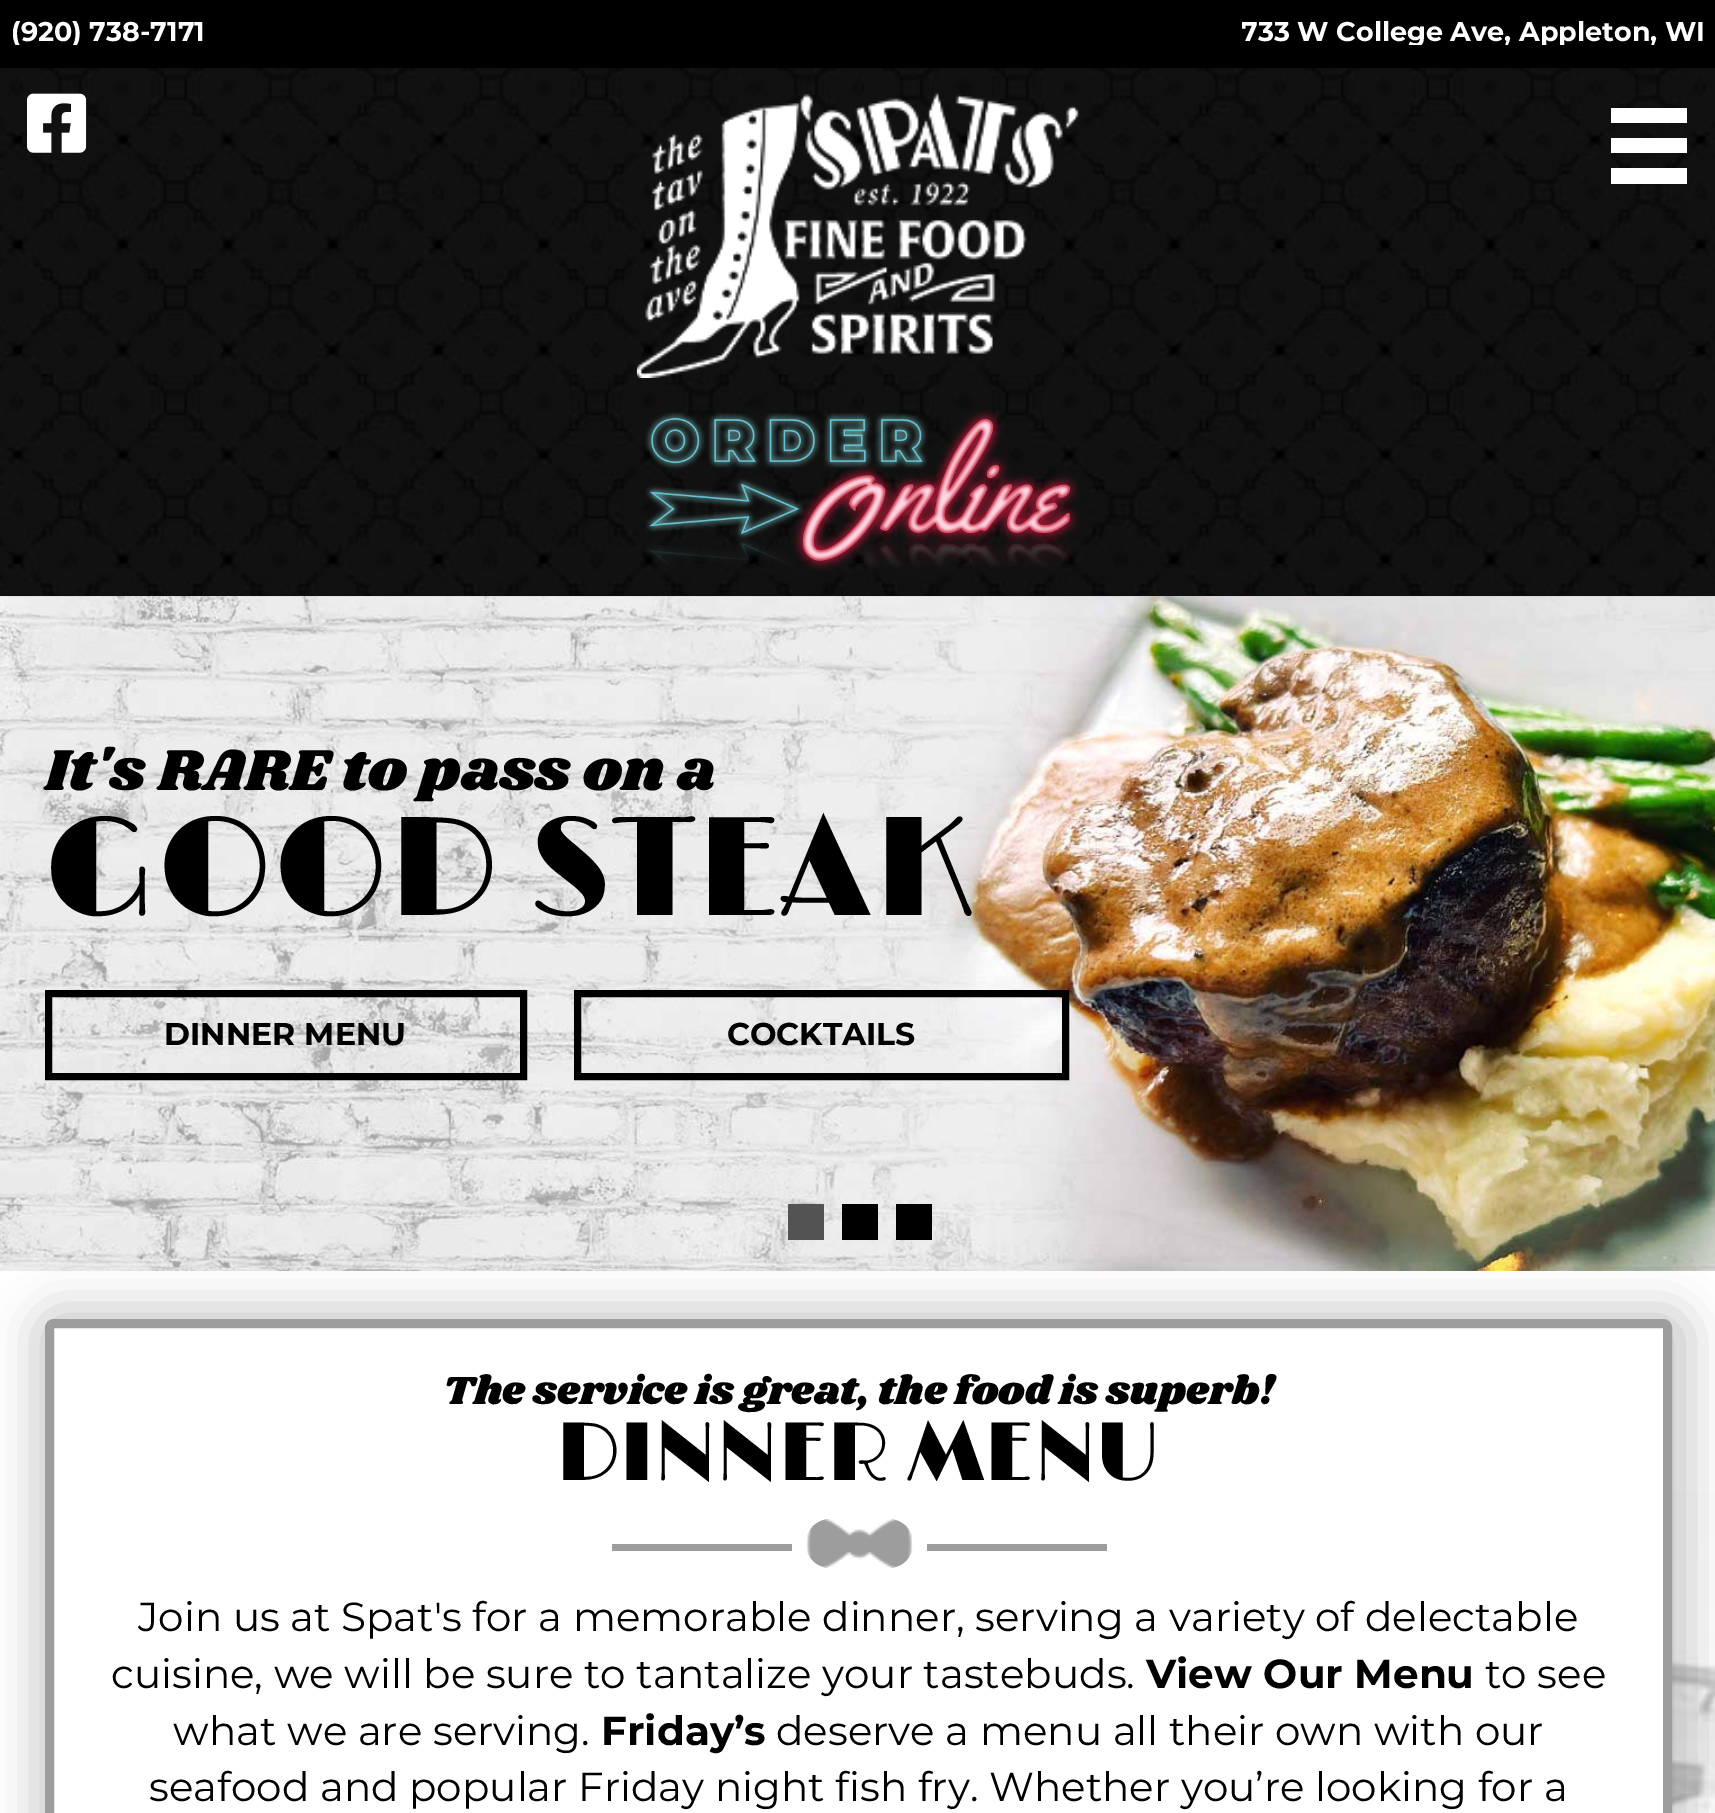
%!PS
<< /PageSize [1715 1813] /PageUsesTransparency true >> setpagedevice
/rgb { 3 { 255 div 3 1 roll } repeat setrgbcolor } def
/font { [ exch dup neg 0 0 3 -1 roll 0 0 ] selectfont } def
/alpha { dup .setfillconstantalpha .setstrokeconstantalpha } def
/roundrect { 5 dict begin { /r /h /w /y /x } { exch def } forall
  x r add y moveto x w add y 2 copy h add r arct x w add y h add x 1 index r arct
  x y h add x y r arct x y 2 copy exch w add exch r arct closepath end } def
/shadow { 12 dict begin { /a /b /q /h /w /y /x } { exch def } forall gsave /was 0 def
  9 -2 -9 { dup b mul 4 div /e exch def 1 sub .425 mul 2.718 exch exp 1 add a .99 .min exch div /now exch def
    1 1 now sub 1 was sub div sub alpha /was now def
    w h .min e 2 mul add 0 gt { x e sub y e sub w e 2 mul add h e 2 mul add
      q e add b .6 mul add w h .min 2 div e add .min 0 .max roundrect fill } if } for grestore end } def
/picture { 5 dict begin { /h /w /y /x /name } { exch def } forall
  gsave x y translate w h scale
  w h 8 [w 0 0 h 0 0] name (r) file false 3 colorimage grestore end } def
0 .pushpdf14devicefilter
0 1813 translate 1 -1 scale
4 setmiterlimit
255 255 255 rgb
0 0 1715 1813 rectfill
(img/1.rgb) 0 68 1715 529 picture
0 0 0 rgb
0 0 1715 68 rectfill
(img/2.rgb) 27 93 60 60 picture
(img/3.rgb) 636 92 443 286 picture
[
  [1611 108 76 15 255 255 255]
  [1611 138 76 15 255 255 255]
  [1611 168 76 16 255 255 255]
] { aload pop rgb rectfill } forall
(img/4.rgb) 645 410 434 161 picture
(img/5.rgb) 0 596 1715 675 picture
0 0 0 rgb
7 setlinewidth
48.5 993.5 475 83 rectstroke
577.5 993.5 488 83 rectstroke
[
  [788 1204 36 36 83 83 83]
  [842 1204 36 36 0 0 0]
  [896 1204 36 36 0 0 0]
] { aload pop rgb rectfill } forall
(img/6.rgb) 1672 1492 43 321 picture
34 1307 1658 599 25 22.5 0.2 shadow
255 255 255 rgb
49.5 1323.5 1618 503 4.5 roundrect gsave fill grestore
157 157 157 rgb
9 setlinewidth
stroke
612 1544 180 7 rectfill
(img/7.rgb) 806 1519 107 49 picture
927 1544 180 7 rectfill
gsave
11 16 194 29 rectclip
/Montserrat-Bold 27 font
255 255 255 rgb
11 41 moveto (\(920\) 738-7171) show
grestore
gsave
1242 16 464 29 rectclip
/Montserrat-Bold 27 font
255 255 255 rgb
1241 41 moveto (733 W College Ave, Appleton, WI) show
grestore
/Shrikhand-Regular 59.8 font
0 0 0 rgb
45 790 moveto (It's RARE to pass on a) show
/Limelight-Light 141.75 font
45 915 moveto (GOOD STEAK) show
/Montserrat-Bold 31.5 font
164 1045 moveto (DINNER MENU) show
727 1045 moveto (COCKTAILS) show
/Shrikhand-Regular 40.5 font
443 1404 moveto (The service is great, the food is superb!) show
/Limelight-Light 83.25 font
556 1480 moveto (DINNER MENU) show
/Montserrat-Regular 40.5 font
138 1631 moveto (Join us at Spat's for a memorable dinner, serving a variety of delectable) show
111 1688 moveto (cuisine, we will be sure to tantalize your tastebuds.) show
/Montserrat-Bold 40.5 font
1146 1688 moveto (View Our Menu) show
/Montserrat-Regular 40.5 font
1485 1688 moveto (to see) show
173 1745 moveto (what we are serving.) show
/Montserrat-Bold 40.5 font
601 1745 moveto (Friday’s) show
/Montserrat-Regular 40.5 font
776 1745 moveto (deserve a menu all their own with our) show
149 1801 moveto (seafood and popular Friday night fish fry. Whether you’re looking for a) show
.poppdf14devicefilter showpage
